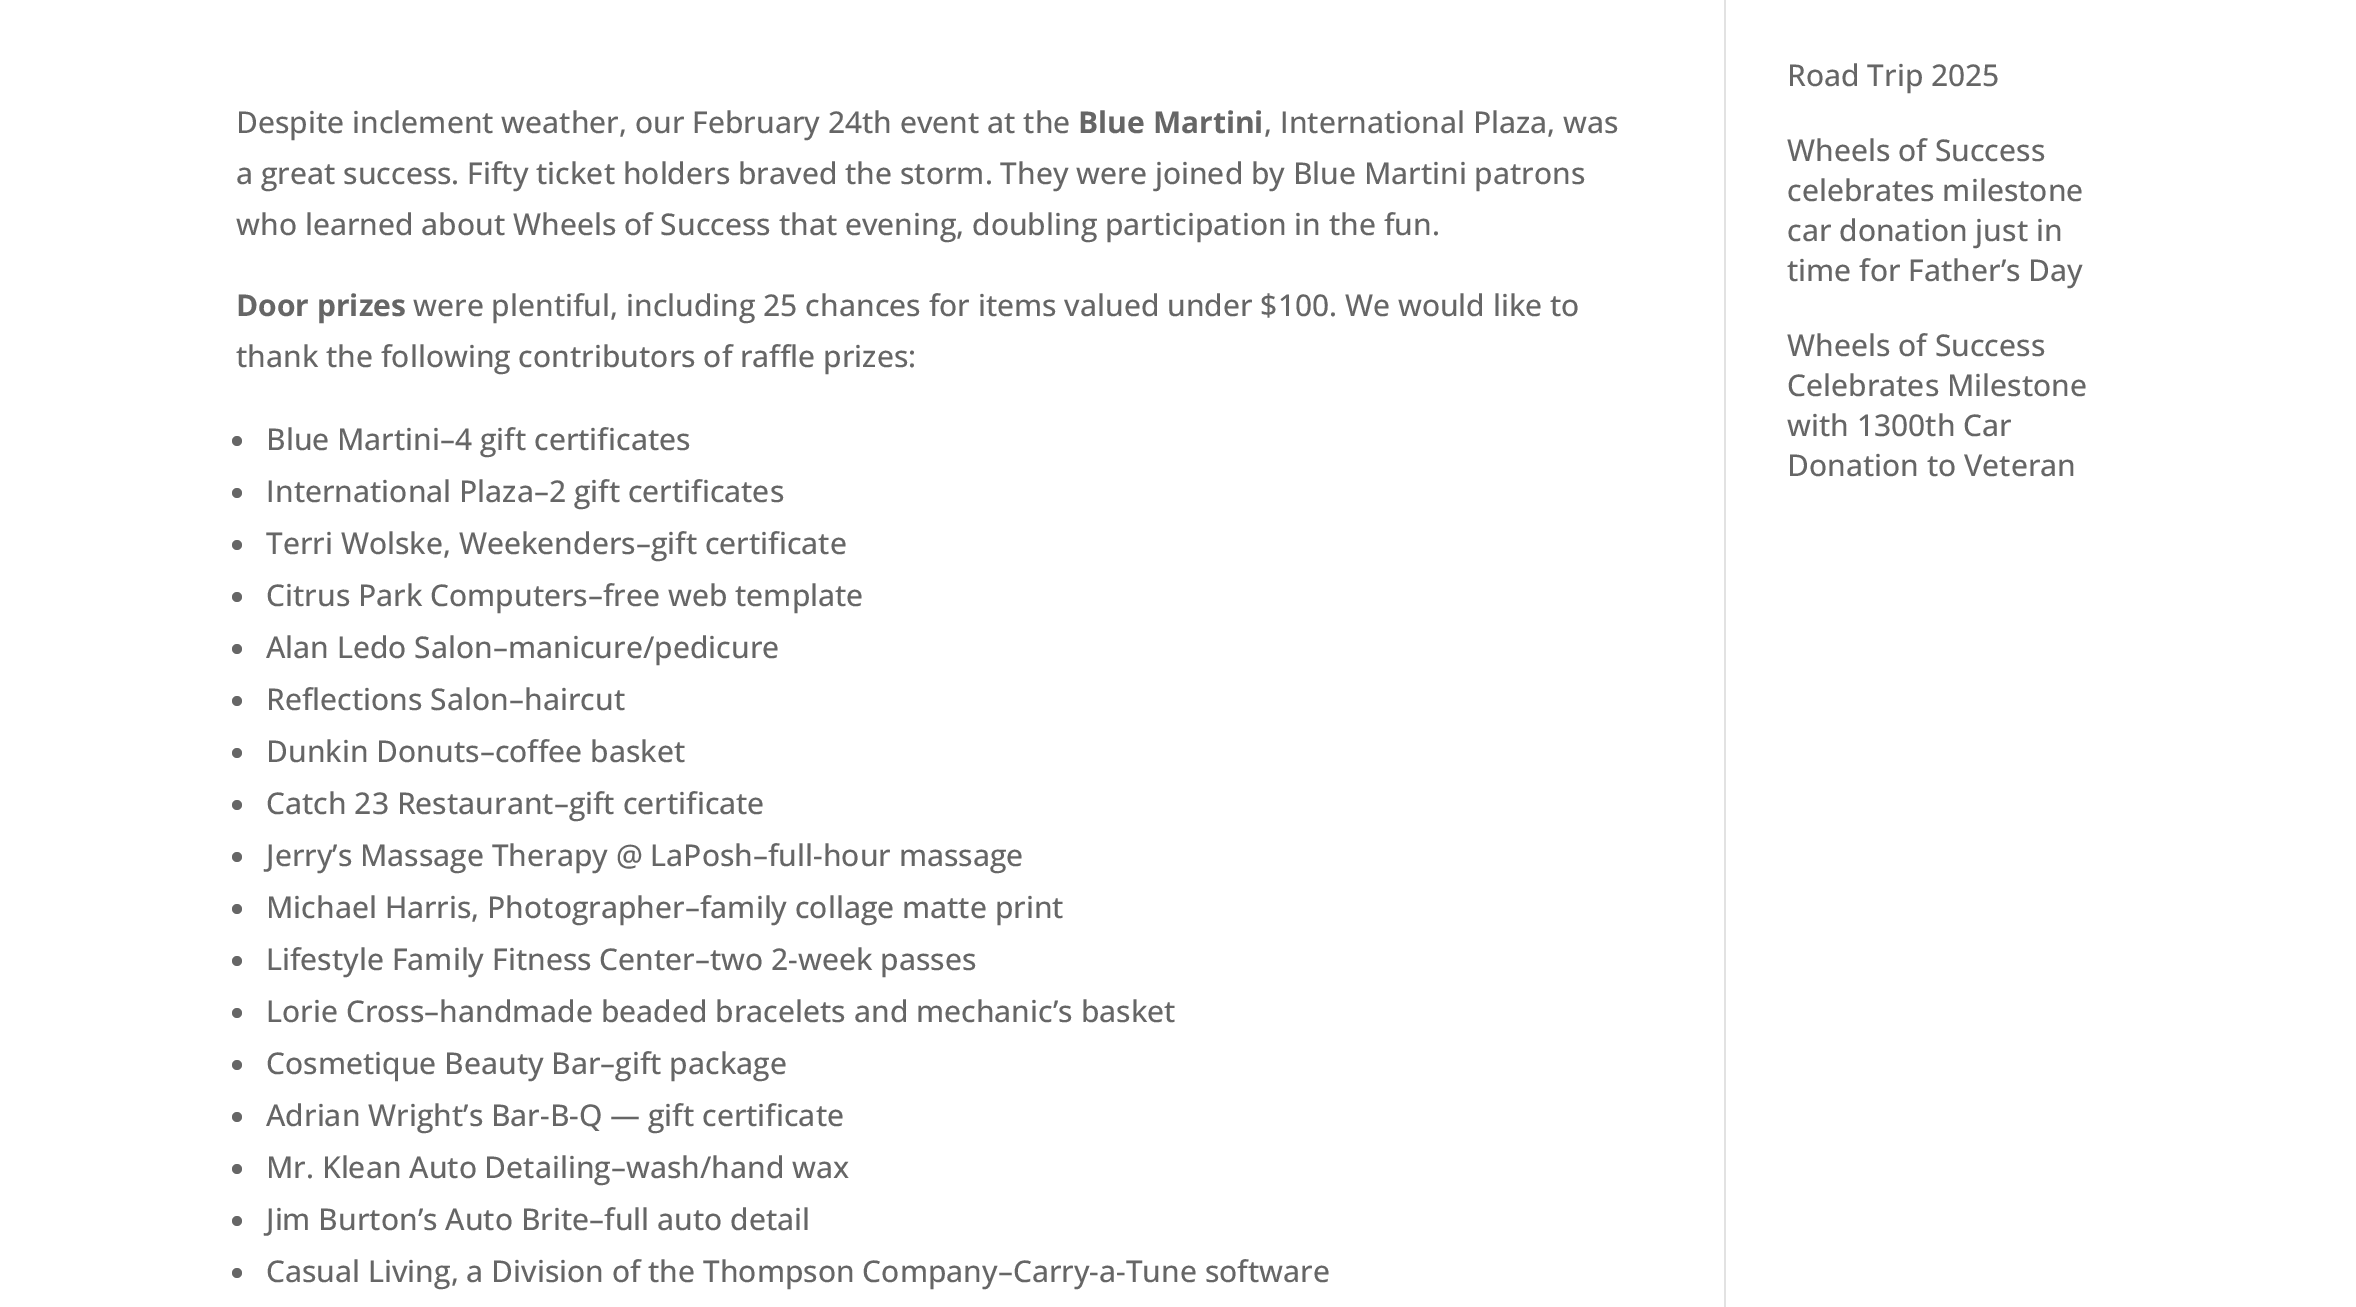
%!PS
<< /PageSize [2356 1307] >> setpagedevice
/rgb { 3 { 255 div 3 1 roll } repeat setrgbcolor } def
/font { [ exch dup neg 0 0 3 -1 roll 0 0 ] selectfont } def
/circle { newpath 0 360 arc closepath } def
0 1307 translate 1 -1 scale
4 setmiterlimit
255 255 255 rgb
0 0 2356 1307 rectfill
226 226 226 rgb
1724 0 2 1307 rectfill
102 102 102 rgb
237 441 5 circle fill
237 493 5 circle fill
237 545 5 circle fill
237 597 5 circle fill
237 649 5 circle fill
237 701 5 circle fill
237 753 5 circle fill
237 805 5 circle fill
237 857 5 circle fill
237 909 5 circle fill
237 961 5 circle fill
237 1013 5 circle fill
237 1065 5 circle fill
237 1117 5 circle fill
237 1169 5 circle fill
237 1221 5 circle fill
237 1273 5 circle fill
/OpenSans-Medium 30 font
236 133 moveto (Despite inclement weather, our February 24th event at the) show
/OpenSans-Bold 30 font
1078 133 moveto (Blue Martini) show
/OpenSans-Medium 30 font
[
  [(, International Plaza, was) 1264 133]
  [(a great success. Fifty ticket holders braved the storm. They were joined by Blue Martini patrons) 236 184]
  [(who learned about Wheels of Success that evening, doubling participation in the fun.) 236 235]
] { aload pop moveto show } forall
/OpenSans-Bold 30 font
236 316 moveto (Door prizes) show
/OpenSans-Medium 30 font
[
  [(were plentiful, including 25 chances for items valued under $100. We would like to) 413 316]
  [(thank the following contributors of raffle prizes:) 236 367]
  [(Blue Martini–4 gift certificates) 266 450]
  [(International Plaza–2 gift certificates) 266 502]
  [(Terri Wolske, Weekenders–gift certificate) 266 554]
  [(Citrus Park Computers–free web template) 266 606]
  [(Alan Ledo Salon–manicure/pedicure) 266 658]
  [(Reflections Salon–haircut) 266 710]
  [(Dunkin Donuts–coffee basket) 266 762]
  [(Catch 23 Restaurant–gift certificate) 266 814]
  [(Jerry’s Massage Therapy @ LaPosh–full-hour massage) 266 866]
  [(Michael Harris, Photographer–family collage matte print) 266 918]
  [(Lifestyle Family Fitness Center–two 2-week passes) 266 970]
  [(Lorie Cross–handmade beaded bracelets and mechanic’s basket) 266 1022]
  [(Cosmetique Beauty Bar–gift package) 266 1074]
  [(Adrian Wright’s Bar-B-Q — gift certificate) 266 1126]
  [(Mr. Klean Auto Detailing–wash/hand wax) 266 1178]
  [(Jim Burton’s Auto Brite–full auto detail) 266 1230]
  [(Casual Living, a Division of the Thompson Company–Carry-a-Tune software) 266 1282]
  [(Road Trip 2025) 1787 86]
  [(Wheels of Success) 1787 161]
  [(celebrates milestone) 1787 201]
  [(car donation just in) 1787 241]
  [(time for Father’s Day) 1787 281]
  [(Wheels of Success) 1787 356]
  [(Celebrates Milestone) 1787 396]
  [(with 1300th Car) 1787 436]
  [(Donation to Veteran) 1787 476]
] { aload pop moveto show } forall
showpage
